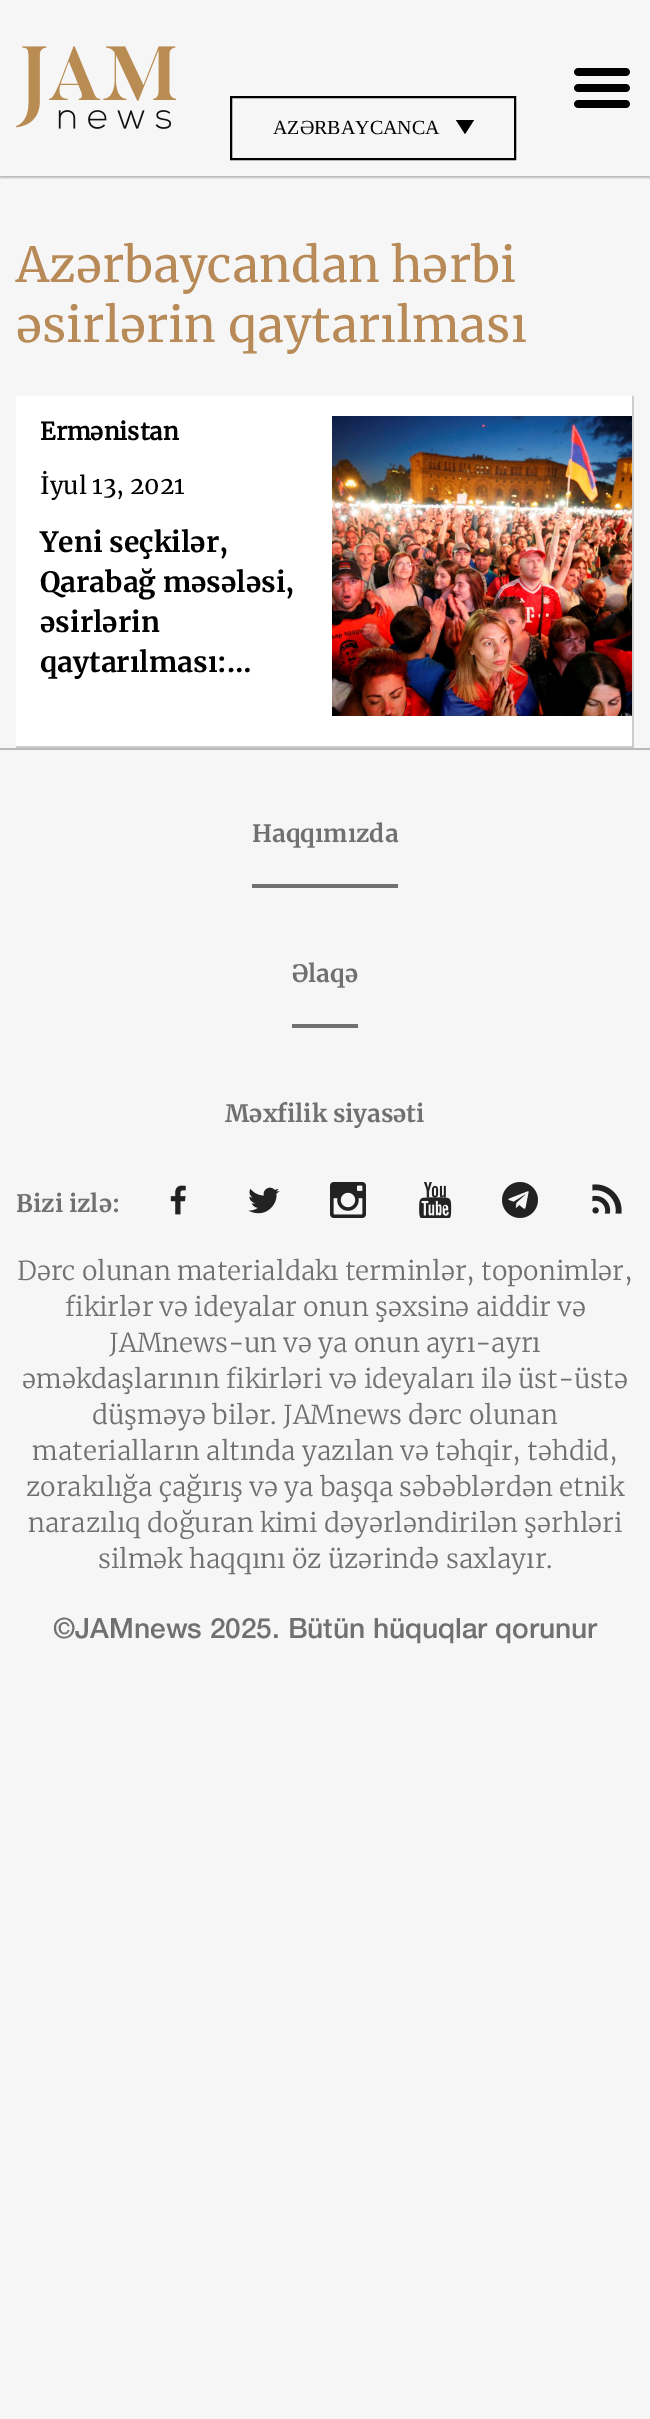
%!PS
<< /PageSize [650 2419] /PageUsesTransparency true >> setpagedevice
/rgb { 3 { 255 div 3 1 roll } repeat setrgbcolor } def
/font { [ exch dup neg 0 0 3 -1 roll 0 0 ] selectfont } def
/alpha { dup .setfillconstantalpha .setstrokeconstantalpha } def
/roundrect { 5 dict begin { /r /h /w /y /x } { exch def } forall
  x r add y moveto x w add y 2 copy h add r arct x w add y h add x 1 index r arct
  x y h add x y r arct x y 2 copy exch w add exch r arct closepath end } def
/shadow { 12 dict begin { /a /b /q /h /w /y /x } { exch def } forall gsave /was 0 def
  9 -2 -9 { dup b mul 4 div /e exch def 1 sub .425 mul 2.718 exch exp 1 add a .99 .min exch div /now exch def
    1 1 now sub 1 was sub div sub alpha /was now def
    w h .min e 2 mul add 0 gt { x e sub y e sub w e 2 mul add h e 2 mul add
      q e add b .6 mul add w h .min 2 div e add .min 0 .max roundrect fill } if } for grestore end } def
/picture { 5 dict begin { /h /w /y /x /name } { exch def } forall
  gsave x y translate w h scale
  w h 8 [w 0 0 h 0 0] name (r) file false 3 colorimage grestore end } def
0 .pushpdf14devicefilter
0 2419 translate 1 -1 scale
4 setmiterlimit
246 246 246 rgb
0 0 650 2419 rectfill
gsave
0 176 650 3 rectclip
0 0 0 rgb
0 2 650 176 0 1 0.25 shadow
grestore
(img/1.rgb) 16 46 160 83 picture
(img/2.rgb) 574 68 56 40 picture
0 0 0 rgb
2 setlinewidth
231 97 284 62 rectstroke
474 120 moveto 465 134 lineto 456 120 lineto closepath fill
255 255 255 rgb
16 396 618 352 rectfill
204 204 204 rgb
634 396 moveto 634 748 lineto 632 746 lineto 632 396 lineto closepath fill
0.2 alpha
0 0 0 rgb
634 748 moveto 16 748 lineto 16 746 lineto 632 746 lineto closepath fill
1 alpha
(img/3.rgb) 332 416 300 300 picture
[
  [0 748 650 2 185 185 185]
  [252 884 146 4 112 112 112]
  [292 1024 66 4 112 112 112]
] { aload pop rgb rectfill } forall
(img/4.rgb) 170 1185 16 30 picture
(img/5.rgb) 248 1187 32 27 picture
(img/6.rgb) 330 1182 36 36 picture
(img/7.rgb) 419 1182 33 36 picture
(img/8.rgb) 502 1182 36 36 picture
(img/9.rgb) 592 1184 30 30 picture
/LiberationSerif-Regular 20 font
0 0 0 rgb
273 134 moveto (AZƏRBAYCANCA) show
/Merriweather-Regular 48 font
184 138 88 rgb
16 282 moveto (Azərbaycandan hərbi) show
16 342 moveto (əsirlərin qaytarılması) show
/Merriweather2-Bold 24 font
0 0 0 rgb
40 440 moveto (Ermənistan) show
/Merriweather-Regular 24 font
40 494 moveto (İyul 13, 2021) show
/Merriweather-Bold 28 font
[
  [(Yeni seçkilər,) 40 552]
  [(Qarabağ məsələsi,) 40 592]
  [(əsirlərin) 40 632]
  [(qaytarılması:…) 40 672]
] { aload pop moveto show } forall
/Merriweather-Bold 24 font
112 112 112 rgb
[
  [(Haqqımızda) 252 842]
  [(Əlaqə) 292 982]
  [(Məxfilik siyasəti) 225 1122]
  [(Bizi izlə:) 16 1212]
] { aload pop moveto show } forall
/Merriweather-Light 26 font
[
  [(Dərc olunan materialdakı terminlər, toponimlər,) 17 1280]
  [(fikirlər və ideyalar onun şəxsinə aiddir və) 65 1316]
  [(JAMnews-un və ya onun ayrı-ayrı) 109 1352]
  [(əməkdaşlarının fikirləri və ideyaları ilə üst-üstə) 22 1388]
  [(düşməyə bilər. JAMnews dərc olunan) 92 1424]
  [(materialların altında yazılan və təhqir, təhdid,) 32 1460]
  [(zorakılığa çağırış və ya başqa səbəblərdən etnik) 26 1496]
  [(narazılıq doğuran kimi dəyərləndirilən şərhləri) 28 1532]
  [(silmək haqqını öz üzərində saxlayır.) 98 1568]
] { aload pop moveto show } forall
/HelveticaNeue-Medium 28 font
53 1638 moveto (©JAMnews 2025. Bütün hüquqlar qorunur) show
.poppdf14devicefilter showpage
